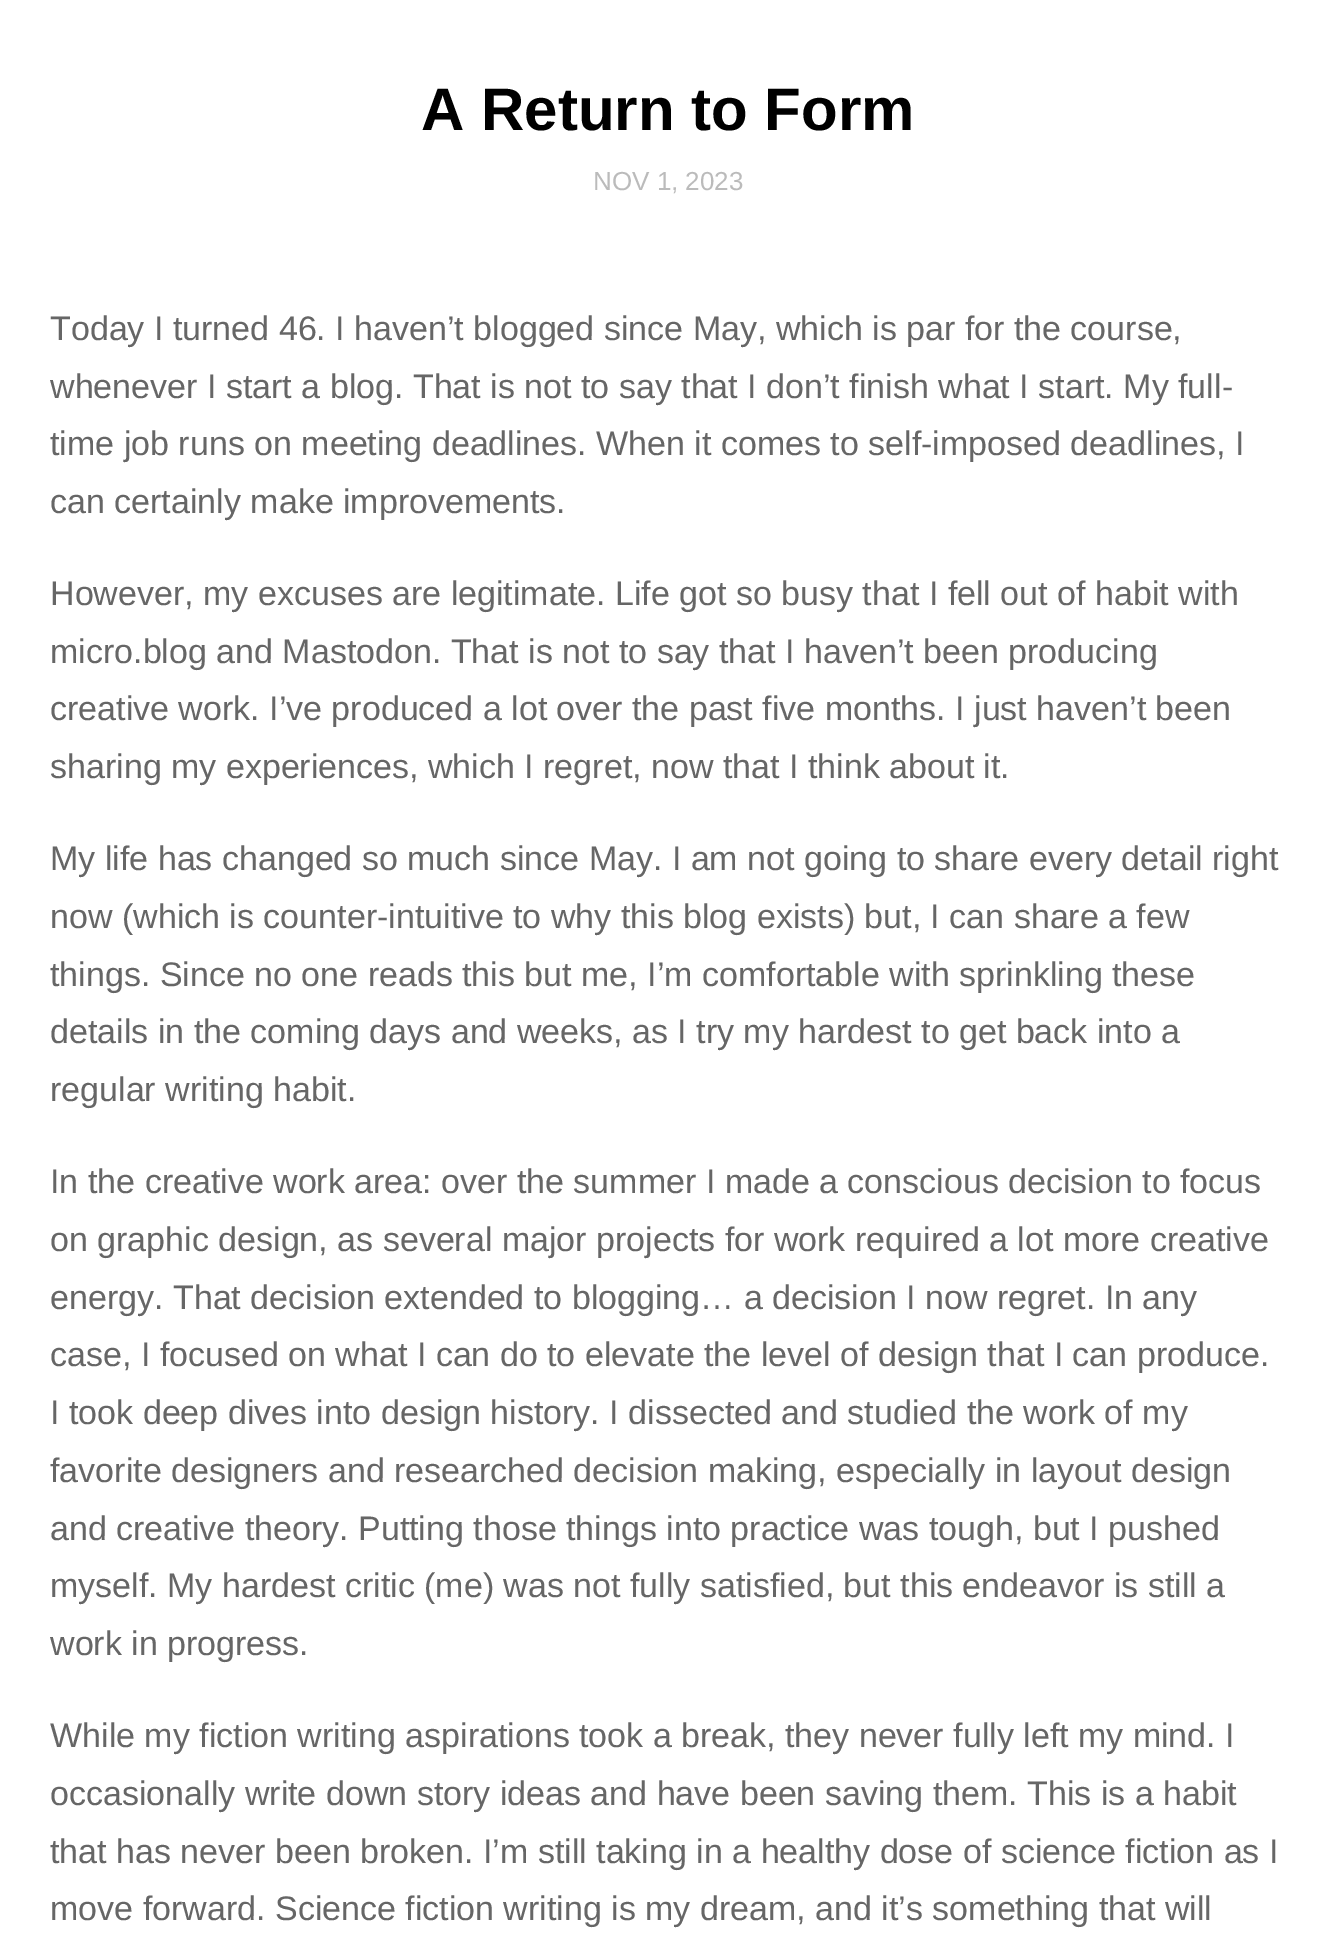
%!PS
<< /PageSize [1336 1934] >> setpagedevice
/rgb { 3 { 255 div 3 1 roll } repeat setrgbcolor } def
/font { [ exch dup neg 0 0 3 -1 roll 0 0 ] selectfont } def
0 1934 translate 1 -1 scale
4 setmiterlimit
255 255 255 rgb
0 0 1336 1934 rectfill
/LiberationSans-Bold 60 font
0 0 0 rgb
421 130 moveto (A Return to Form) show
/LiberationSans-Regular 26 font
187 187 187 rgb
593 190 moveto (NOV 1, 2023) show
/LiberationSans-Regular 34 font
102 102 102 rgb
[
  [(Today I turned 46. I haven’t blogged since May, which is par for the course,) 50 340]
  [(whenever I start a blog. That is not to say that I don’t finish what I start. My full-) 50 398]
  [(time job runs on meeting deadlines. When it comes to self-imposed deadlines, I) 50 455]
  [(can certainly make improvements.) 50 513]
  [(However, my excuses are legitimate. Life got so busy that I fell out of habit with) 50 605]
  [(micro.blog and Mastodon. That is not to say that I haven’t been producing) 50 663]
  [(creative work. I’ve produced a lot over the past five months. I just haven’t been) 50 720]
  [(sharing my experiences, which I regret, now that I think about it.) 50 778]
  [(My life has changed so much since May. I am not going to share every detail right) 50 870]
  [(now \(which is counter-intuitive to why this blog exists\) but, I can share a few) 50 928]
  [(things. Since no one reads this but me, I’m comfortable with sprinkling these) 50 986]
  [(details in the coming days and weeks, as I try my hardest to get back into a) 50 1043]
  [(regular writing habit.) 50 1101]
  [(In the creative work area: over the summer I made a conscious decision to focus) 50 1193]
  [(on graphic design, as several major projects for work required a lot more creative) 50 1251]
  [(energy. That decision extended to blogging… a decision I now regret. In any) 50 1309]
  [(case, I focused on what I can do to elevate the level of design that I can produce.) 50 1366]
  [(I took deep dives into design history. I dissected and studied the work of my) 50 1424]
  [(favorite designers and researched decision making, especially in layout design) 50 1482]
  [(and creative theory. Putting those things into practice was tough, but I pushed) 50 1540]
  [(myself. My hardest critic \(me\) was not fully satisfied, but this endeavor is still a) 50 1597]
  [(work in progress.) 50 1655]
  [(While my fiction writing aspirations took a break, they never fully left my mind. I) 50 1747]
  [(occasionally write down story ideas and have been saving them. This is a habit) 50 1805]
  [(that has never been broken. I’m still taking in a healthy dose of science fiction as I) 50 1863]
  [(move forward. Science fiction writing is my dream, and it’s something that will) 50 1920]
] { aload pop moveto show } forall
showpage
